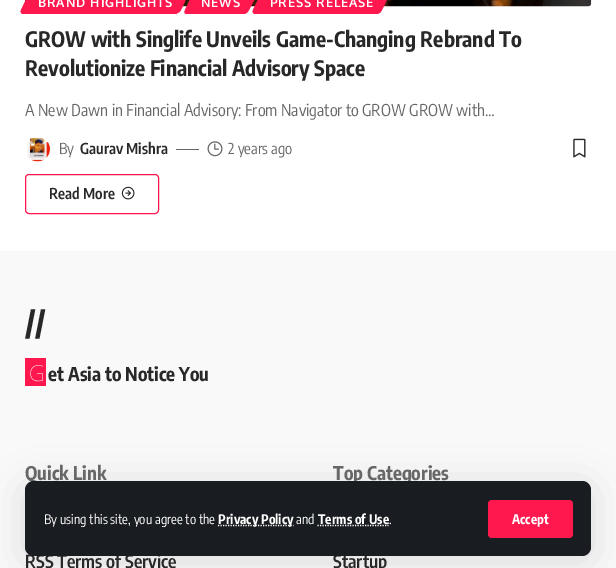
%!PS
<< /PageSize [616 568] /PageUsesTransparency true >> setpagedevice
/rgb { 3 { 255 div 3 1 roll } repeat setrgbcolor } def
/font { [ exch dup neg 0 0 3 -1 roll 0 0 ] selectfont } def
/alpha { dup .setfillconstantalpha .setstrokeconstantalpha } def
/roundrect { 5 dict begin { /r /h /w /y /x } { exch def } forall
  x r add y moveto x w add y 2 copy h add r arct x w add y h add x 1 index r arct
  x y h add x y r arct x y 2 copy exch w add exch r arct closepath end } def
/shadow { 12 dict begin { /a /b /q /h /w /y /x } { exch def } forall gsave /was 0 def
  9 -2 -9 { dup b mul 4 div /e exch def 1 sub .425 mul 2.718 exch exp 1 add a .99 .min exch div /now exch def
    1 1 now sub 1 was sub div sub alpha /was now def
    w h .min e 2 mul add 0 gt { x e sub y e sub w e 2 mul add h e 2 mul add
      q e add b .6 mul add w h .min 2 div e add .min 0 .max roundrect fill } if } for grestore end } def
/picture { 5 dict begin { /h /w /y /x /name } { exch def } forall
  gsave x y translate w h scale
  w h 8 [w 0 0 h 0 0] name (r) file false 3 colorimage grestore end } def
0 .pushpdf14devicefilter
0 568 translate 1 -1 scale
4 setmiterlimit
255 255 255 rgb
0 0 616 568 rectfill
(img/1.rgb) 25 0 567 7 picture
255 24 78 rgb
35 -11 moveto 187 -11 lineto 189 -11 190 -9 189 -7 curveto 181 10 lineto 180 12 177 14 175 14 curveto 23 14 lineto 21 14 20 12 21 10 curveto 29 -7 lineto 30 -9 33 -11 35 -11 curveto closepath fill
198 -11 moveto 256 -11 lineto 258 -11 258 -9 258 -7 curveto 249 10 lineto 248 12 246 14 244 14 curveto 187 14 lineto 184 14 184 12 185 10 curveto 193 -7 lineto 194 -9 196 -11 198 -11 curveto closepath fill
267 -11 moveto 388 -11 lineto 390 -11 391 -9 390 -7 curveto 382 10 lineto 381 12 379 14 377 14 curveto 255 14 lineto 253 14 252 12 253 10 curveto 261 -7 lineto 262 -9 265 -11 267 -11 curveto closepath fill
(img/2.rgb) 27 137 23 25 picture
102 102 102 rgb
176 149 23 1 rectfill
(img/3.rgb) 207 141 16 16 picture
(img/4.rgb) 573 138 13 20 picture
255 24 78 rgb
25.5 174.5 133 39 3.5 roundrect stroke
(img/5.rgb) 121 186 14 14 picture
249 249 249 rgb
0 251 616 317 rectfill
255 24 78 rgb
25 358 21 28 rectfill
0 0 0 rgb
25 486 566 75 9 19 0.12 shadow
/Oxygen-Bold 12.5 font
255 255 255 rgb
38 7 moveto 0.9 0 (BRAND HIGHLIGHTS) ashow
201 7 moveto 0.9 0 (NEWS) ashow
270 7 moveto 0.9 0 (PRESS RELEASE) ashow
/EncodeSansCondensed-Bold 21.25 font
40 40 40 rgb
25 47 moveto (GROW with Singlife Unveils Game-Changing Rebrand To) show
25 76 moveto (Revolutionize Financial Advisory Space) show
/EncodeSansCondensed-Regular 16.25 font
103 103 103 rgb
25 116 moveto (A New Dawn in Financial Advisory: From Navigator to GROW GROW with…) show
/EncodeSansCondensed-Regular 15 font
59 154 moveto (By) show
/EncodeSansCondensed-SemiBold 15 font
40 40 40 rgb
80 154 moveto (Gaurav Mishra) show
/EncodeSansCondensed-Regular 15 font
103 103 103 rgb
228 154 moveto (2 years ago) show
/EncodeSansCondensed-SemiBold 15 font
40 40 40 rgb
49 199 moveto (Read More) show
/EncodeSansCondensed-Bold 32 font
25 335 moveto (//) show
/NotoSans-Thin 22 font
255 255 255 rgb
29 381 moveto (G) show
/EncodeSansCondensed-Bold 18.75 font
40 40 40 rgb
48 381 moveto (et Asia to Notice You) show
103 103 103 rgb
25 480 moveto (Quick Link) show
/EncodeSansCondensed-SemiBold 18 font
40 40 40 rgb
25 568 moveto (RSS Terms of Service) show
/EncodeSansCondensed-Bold 18.75 font
103 103 103 rgb
333 480 moveto (Top Categories) show
/EncodeSansCondensed-SemiBold 18 font
40 40 40 rgb
333 568 moveto (Startup) show
25 28 32 rgb
25 481 566 75 9 roundrect fill
/EncodeSansCondensed-Regular 13.1 font
255 255 255 rgb
44 524 moveto (By using this site, you agree to the) show
1.2 setlinewidth
[1.25 1.25] 0 setdash
218 525.5 moveto 293.5 525.5 lineto stroke
/EncodeSansCondensed-Bold 13.1 font
218 524 moveto (Privacy Policy) show
/EncodeSansCondensed-Regular 13.1 font
296 524 moveto (and) show
317.5 525.5 moveto 388.5 525.5 lineto stroke
/EncodeSansCondensed-Bold 13.1 font
318 524 moveto (Terms of Use) show
/EncodeSansCondensed-Regular 13.1 font
389 524 moveto (.) show
255 24 78 rgb
488 500 85 38 4 roundrect fill
/EncodeSansCondensed-Bold 13 font
255 255 255 rgb
512 524 moveto (Accept) show
.poppdf14devicefilter showpage
